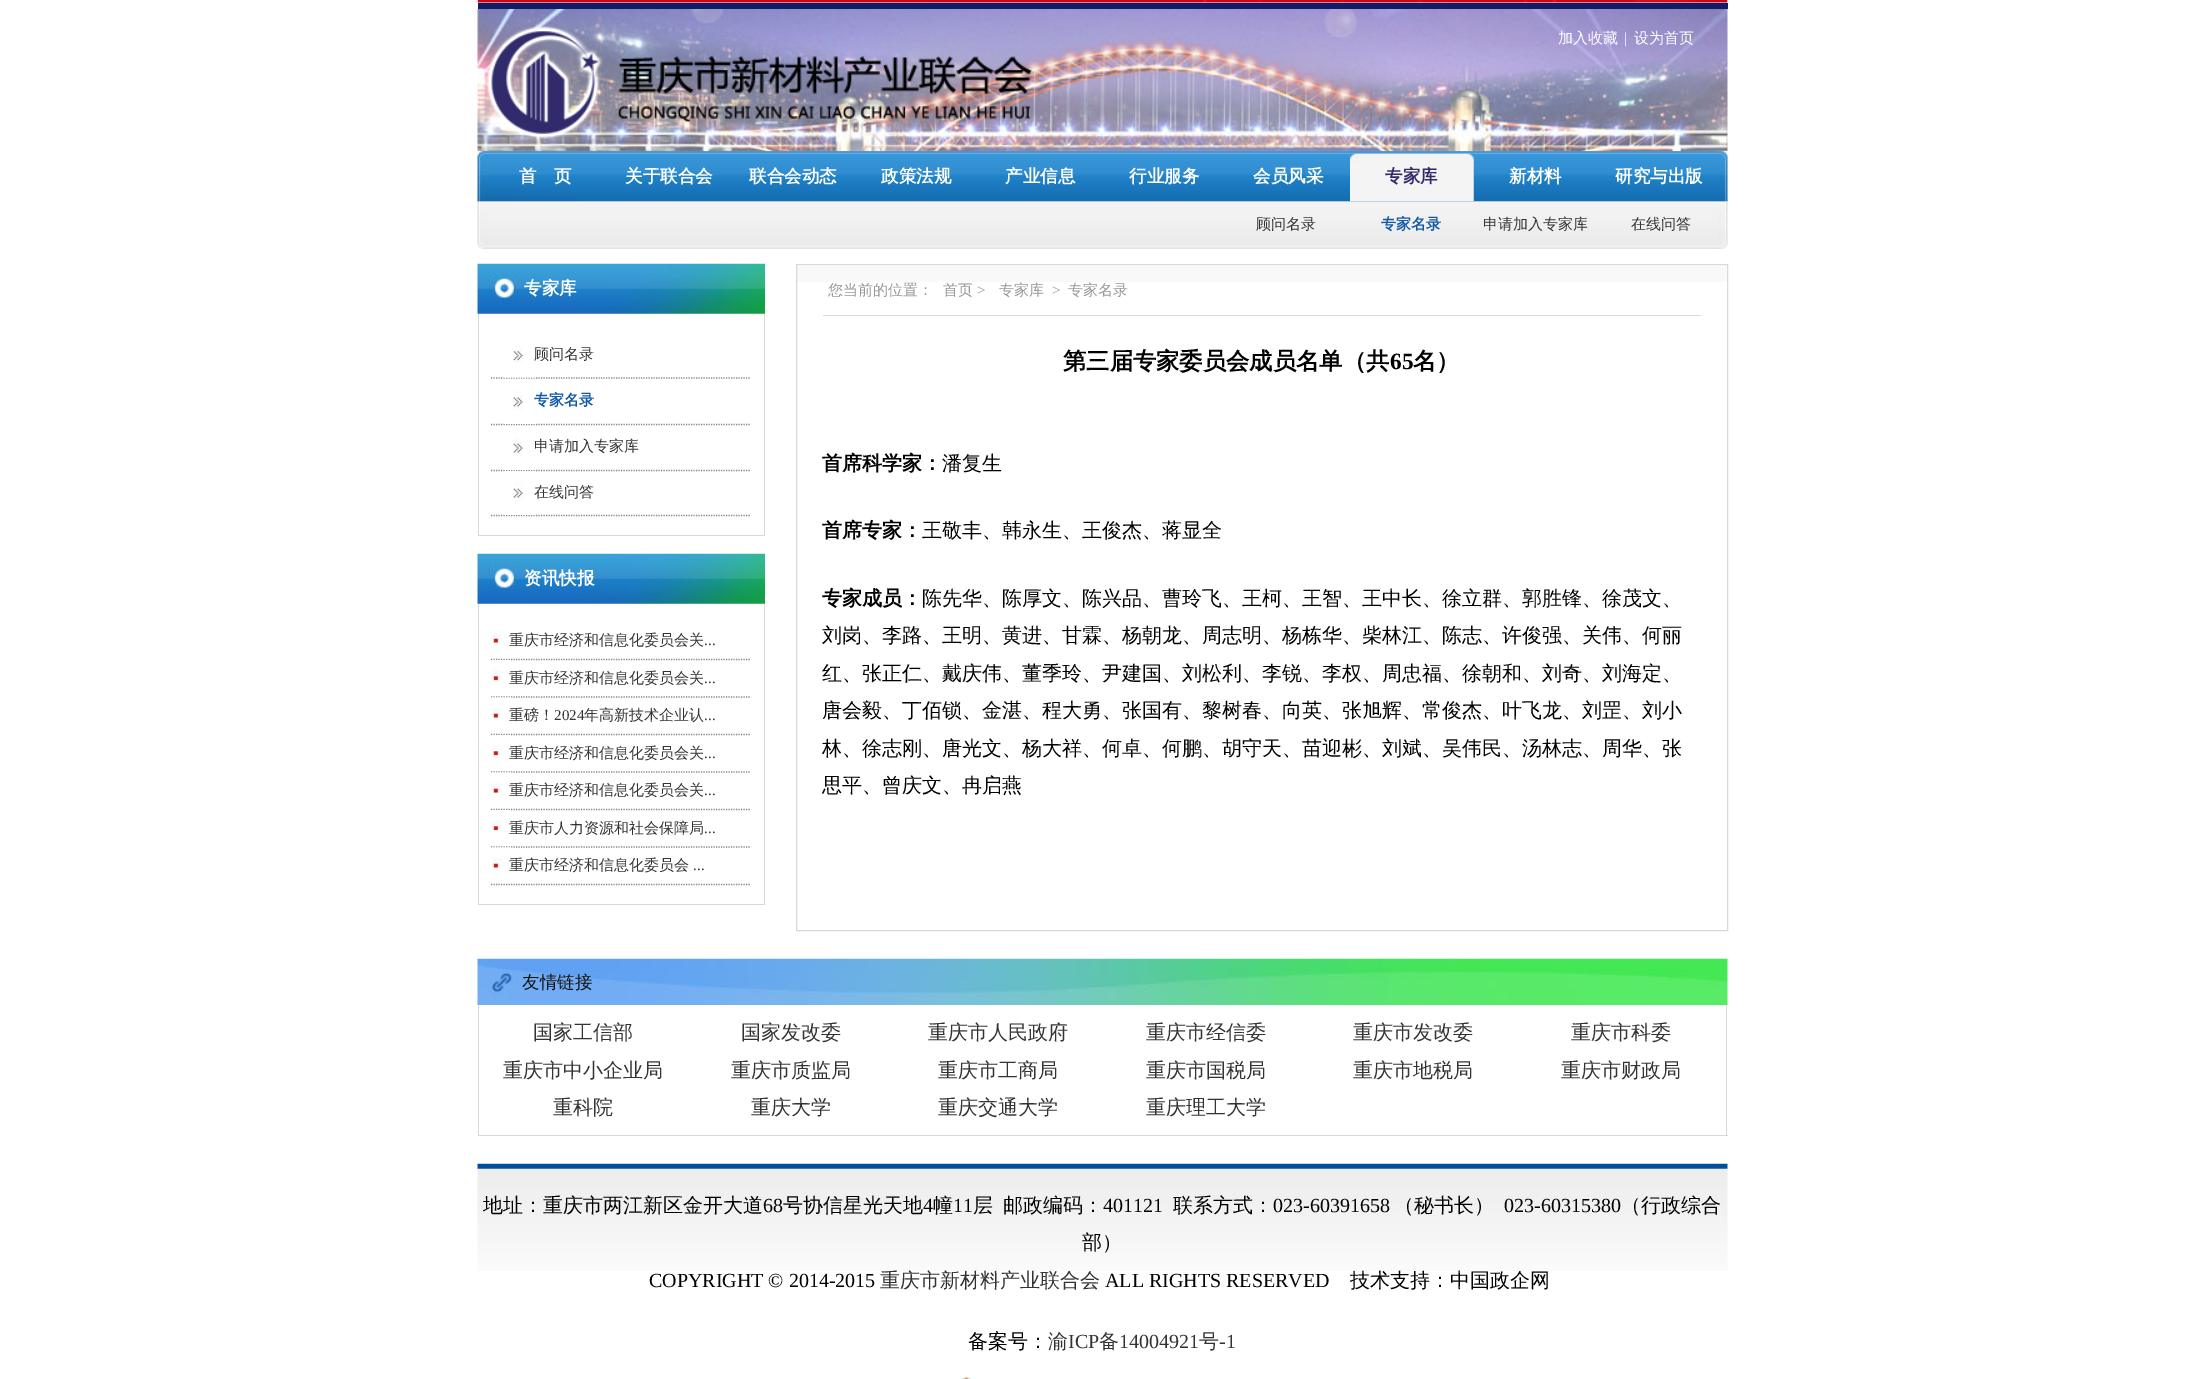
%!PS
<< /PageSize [2203 1379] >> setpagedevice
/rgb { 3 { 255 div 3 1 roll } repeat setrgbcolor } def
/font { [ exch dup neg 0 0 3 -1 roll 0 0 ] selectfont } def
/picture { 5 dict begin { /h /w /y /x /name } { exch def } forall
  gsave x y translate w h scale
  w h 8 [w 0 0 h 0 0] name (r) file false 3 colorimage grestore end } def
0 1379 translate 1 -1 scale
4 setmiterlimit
255 255 255 rgb
0 0 2203 1379 rectfill
(img/1.rgb) 477 0 1251 3 picture
(img/2.rgb) 477 8 1251 144 picture
17 28 105 rgb
478 3 1250 6 rectfill
(img/3.rgb) 486 26 546 113 picture
(img/4.rgb) 477 151 1251 98 picture
(img/5.rgb) 1350 153 124 49 picture
(img/6.rgb) 477 263 288 51 picture
[
  [764 314 1 222 217 217 217]
  [478 535 287 1 217 217 217]
  [478 314 1 222 217 217 217]
] { aload pop rgb rectfill } forall
132 132 132 rgb
1.2 setlinewidth
[1.25 1.25] 0 setdash
491 378 moveto 751 378 lineto stroke
(img/7.rgb) 503 345 32 33 picture
491 424.5 moveto 751 424.5 lineto stroke
(img/8.rgb) 504 391 31 33 picture
491 470.5 moveto 751 470.5 lineto stroke
(img/9.rgb) 504 437 31 33 picture
491 515.5 moveto 751 515.5 lineto stroke
(img/10.rgb) 504 471 31 44 picture
(img/11.rgb) 477 553 288 51 picture
[
  [764 604 1 301 217 217 217]
  [478 904 287 1 217 217 217]
  [478 604 1 301 217 217 217]
] { aload pop rgb rectfill } forall
(img/12.rgb) 491 632 11 11 picture
132 132 132 rgb
491 659.5 moveto 751 659.5 lineto stroke
(img/13.rgb) 491 660 19 21 picture
491 697 moveto 751 697 lineto stroke
(img/14.rgb) 491 697 21 21 picture
491 734.5 moveto 751 734.5 lineto stroke
(img/13.rgb) 491 735 19 21 picture
491 772 moveto 751 772 lineto stroke
(img/15.rgb) 491 772 21 21 picture
491 809.5 moveto 751 809.5 lineto stroke
(img/13.rgb) 491 810 19 21 picture
491 847 moveto 751 847 lineto stroke
(img/14.rgb) 491 847 21 21 picture
491 884.5 moveto 751 884.5 lineto stroke
249 249 249 rgb
797 266 930 16 rectfill
217 217 217 rgb
1 setlinewidth
[] 0 setdash
796.5 264.5 931 666 rectstroke
823 315 878 1 rectfill
(img/16.rgb) 477 958 1251 47 picture
[
  [1726 1005 1 131 217 217 217]
  [478 1135 1250 1 217 217 217]
  [478 1005 1 131 217 217 217]
] { aload pop rgb rectfill } forall
(img/17.rgb) 477 1163 1251 108 picture
(img/18.rgb) 960 1377 12 2 picture
/WenQuanYiZenHei-Medium 15 font
255 255 255 rgb
1558 43 moveto (加入收藏) show
/LiberationSerif-Regular 15 font
1624 43 moveto (|) show
/WenQuanYiZenHei-Medium 15 font
1634 43 moveto (设为首页) show
/WenQuanYiZenHei-Bold 17.5 font
[
  [(首) 519 182]
  [(页) 554 182]
  [(关于联合会) 625 182]
  [(联合会动态) 749 182]
  [(政策法规) 881 182]
  [(产业信息) 1005 182]
  [(行业服务) 1129 182]
  [(会员风采) 1253 182]
] { aload pop moveto show } forall
49 43 108 rgb
1385 182 moveto (专家库) show
/WenQuanYiZenHei-Medium 15 font
51 51 51 rgb
1256 229 moveto (顾问名录) show
/WenQuanYiZenHei-Bold 15 font
20 89 166 rgb
1381 229 moveto (专家名录) show
/WenQuanYiZenHei-Medium 15 font
51 51 51 rgb
1483 229 moveto (申请加入专家库) show
1631 229 moveto (在线问答) show
/WenQuanYiZenHei-Bold 17.5 font
255 255 255 rgb
[
  [(新材料) 1509 182]
  [(研究与出版) 1615 182]
  [(专家库) 524 294]
] { aload pop moveto show } forall
/WenQuanYiZenHei-Medium 15 font
51 51 51 rgb
534 359 moveto (顾问名录) show
/WenQuanYiZenHei-Bold 15 font
20 89 166 rgb
534 405 moveto (专家名录) show
/WenQuanYiZenHei-Medium 15 font
51 51 51 rgb
534 451 moveto (申请加入专家库) show
534 497 moveto (在线问答) show
/WenQuanYiZenHei-Bold 17.5 font
255 255 255 rgb
524 584 moveto (资讯快报) show
/WenQuanYiZenHei-Medium 15 font
51 51 51 rgb
509 645 moveto (重庆市经济和信息化委员会关) show
/LiberationSerif-Regular 15 font
704 645 moveto (...) show
/WenQuanYiZenHei-Medium 15 font
509 683 moveto (重庆市经济和信息化委员会关) show
/LiberationSerif-Regular 15 font
704 683 moveto (...) show
/WenQuanYiZenHei-Medium 15 font
509 720 moveto (重磅！) show
/LiberationSerif-Regular 15 font
554 720 moveto (2024) show
/WenQuanYiZenHei-Medium 15 font
584 720 moveto (年高新技术企业认) show
/LiberationSerif-Regular 15 font
704 720 moveto (...) show
/WenQuanYiZenHei-Medium 15 font
509 758 moveto (重庆市经济和信息化委员会关) show
/LiberationSerif-Regular 15 font
704 758 moveto (...) show
/WenQuanYiZenHei-Medium 15 font
509 795 moveto (重庆市经济和信息化委员会关) show
/LiberationSerif-Regular 15 font
704 795 moveto (...) show
/WenQuanYiZenHei-Medium 15 font
509 833 moveto (重庆市人力资源和社会保障局) show
/LiberationSerif-Regular 15 font
704 833 moveto (...) show
/WenQuanYiZenHei-Medium 15 font
509 870 moveto (重庆市经济和信息化委员会) show
/LiberationSerif-Regular 15 font
693 870 moveto (...) show
/WenQuanYiZenHei-Medium 15 font
151 151 151 rgb
828 295 moveto (您当前的位置：) show
943 295 moveto (首页) show
/LiberationSerif-Regular 15 font
977 295 moveto (>) show
/WenQuanYiZenHei-Medium 15 font
999 295 moveto (专家库) show
/LiberationSerif-Regular 15 font
1052 295 moveto (>) show
/WenQuanYiZenHei-Medium 15 font
1068 295 moveto (专家名录) show
/WenQuanYiZenHei-Bold 23.3 font
0 0 0 rgb
1063 369 moveto (第三届专家委员会成员名单（共) show
/LiberationSerif-Bold 23.3 font
1390 369 moveto (65) show
/WenQuanYiZenHei-Bold 23.3 font
1413 369 moveto (名）) show
/WenQuanYiZenHei-Bold 20 font
822 470 moveto (首席科学家：) show
/WenQuanYiZenHei-Medium 20 font
942 470 moveto (潘复生) show
/WenQuanYiZenHei-Bold 20 font
822 537 moveto (首席专家：) show
/WenQuanYiZenHei-Medium 20 font
922 537 moveto (王敬丰、韩永生、王俊杰、蒋显全) show
/WenQuanYiZenHei-Bold 20 font
822 605 moveto (专家成员：) show
/WenQuanYiZenHei-Medium 20 font
[
  [(陈先华、陈厚文、陈兴品、曹玲飞、王柯、王智、王中长、徐立群、郭胜锋、徐茂文、) 922 605]
  [(刘岗、李路、王明、黄进、甘霖、杨朝龙、周志明、杨栋华、柴林江、陈志、许俊强、关伟、何丽) 822 642]
  [(红、张正仁、戴庆伟、董季玲、尹建国、刘松利、李锐、李权、周忠福、徐朝和、刘奇、刘海定、) 822 680]
  [(唐会毅、丁佰锁、金湛、程大勇、张国有、黎树春、向英、张旭辉、常俊杰、叶飞龙、刘罡、刘小) 822 717]
  [(林、徐志刚、唐光文、杨大祥、何卓、何鹏、胡守天、苗迎彬、刘斌、吴伟民、汤林志、周华、张) 822 755]
  [(思平、曾庆文、冉启燕) 822 792]
] { aload pop moveto show } forall
/WenQuanYiZenHei-Medium 17.5 font
17 17 17 rgb
522 988 moveto (友情链接) show
/WenQuanYiZenHei-Medium 20 font
51 51 51 rgb
[
  [(国家工信部) 533 1039]
  [(国家发改委) 741 1039]
  [(重庆市人民政府) 928 1039]
  [(重庆市经信委) 1146 1039]
  [(重庆市发改委) 1353 1039]
  [(重庆市科委) 1571 1039]
  [(重庆市中小企业局) 503 1077]
  [(重庆市质监局) 731 1077]
  [(重庆市工商局) 938 1077]
  [(重庆市国税局) 1146 1077]
  [(重庆市地税局) 1353 1077]
  [(重庆市财政局) 1561 1077]
  [(重科院) 553 1114]
  [(重庆大学) 751 1114]
  [(重庆交通大学) 938 1114]
  [(重庆理工大学) 1146 1114]
] { aload pop moveto show } forall
0 0 0 rgb
483 1212 moveto (地址：重庆市两江新区金开大道) show
/LiberationSerif-Regular 20 font
763 1212 moveto (68) show
/WenQuanYiZenHei-Medium 20 font
783 1212 moveto (号协信星光天地) show
/LiberationSerif-Regular 20 font
923 1212 moveto (4) show
/WenQuanYiZenHei-Medium 20 font
933 1212 moveto (幢) show
/LiberationSerif-Regular 20 font
953 1212 moveto (11) show
/WenQuanYiZenHei-Medium 20 font
973 1212 moveto (层) show
1003 1212 moveto (邮政编码：) show
/LiberationSerif-Regular 20 font
1103 1212 moveto (401121) show
/WenQuanYiZenHei-Medium 20 font
1173 1212 moveto (联系方式：) show
/LiberationSerif-Regular 20 font
1273 1212 moveto (023-60391658) show
/WenQuanYiZenHei-Medium 20 font
1394 1212 moveto (（秘书长）) show
/LiberationSerif-Regular 20 font
1504 1212 moveto (023-60315380) show
/WenQuanYiZenHei-Medium 20 font
1621 1212 moveto (（行政综合) show
1082 1249 moveto (部）) show
/LiberationSerif-Regular 20 font
649 1287 moveto (COPYRIGHT © 2014-2015) show
/WenQuanYiZenHei-Medium 20 font
51 51 51 rgb
880 1287 moveto (重庆市新材料产业联合会) show
/LiberationSerif-Regular 20 font
0 0 0 rgb
1105 1287 moveto (ALL RIGHTS RESERVED) show
/WenQuanYiZenHei-Medium 20 font
1350 1287 moveto (技术支持：中国政企网) show
968 1348 moveto (备案号：) show
51 51 51 rgb
1048 1348 moveto (渝) show
/LiberationSerif-Regular 20 font
1068 1348 moveto (ICP) show
/WenQuanYiZenHei-Medium 20 font
1099 1348 moveto (备) show
/LiberationSerif-Regular 20 font
1119 1348 moveto (14004921) show
/WenQuanYiZenHei-Medium 20 font
1199 1348 moveto (号) show
/LiberationSerif-Regular 20 font
1219 1348 moveto (-1) show
showpage
